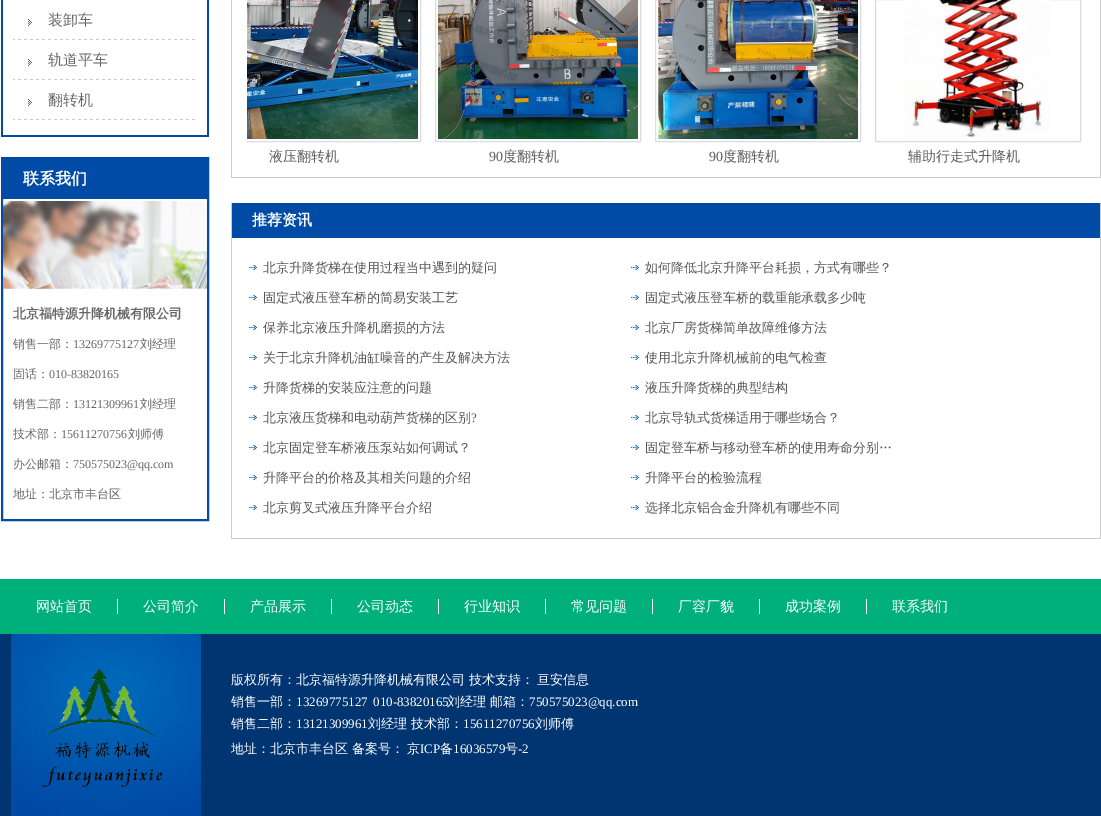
%!PS
<< /PageSize [1101 816] >> setpagedevice
/rgb { 3 { 255 div 3 1 roll } repeat setrgbcolor } def
/font { [ exch dup neg 0 0 3 -1 roll 0 0 ] selectfont } def
/picture { 5 dict begin { /h /w /y /x /name } { exch def } forall
  gsave x y translate w h scale
  w h 8 [w 0 0 h 0 0] name (r) file false 3 colorimage grestore end } def
0 816 translate 1 -1 scale
4 setmiterlimit
255 255 255 rgb
0 0 1101 816 rectfill
[
  [207 0 2 137 0 75 166]
  [1 135 208 2 0 75 166]
  [1 0 2 137 0 75 166]
] { aload pop rgb rectfill } forall
(img/1.rgb) 13 39 182 1 picture
(img/2.rgb) 28 19 4 7 picture
(img/1.rgb) 13 79 182 1 picture
(img/2.rgb) 28 59 4 7 picture
(img/1.rgb) 13 119 182 1 picture
(img/2.rgb) 28 99 4 7 picture
2 setlinewidth
2 158 206 362 rectstroke
3 159 204 40 rectfill
(img/3.rgb) 3 201 204 88 picture
[
  [1100 0 1 178 204 204 204]
  [231 177 870 1 204 204 204]
  [231 0 1 178 204 204 204]
] { aload pop rgb rectfill } forall
gsave
247 0 835 177 rectclip
218 220 225 rgb
1 setlinewidth
215.5 -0.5 205 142 rectstroke
grestore
(img/4.rgb) 247 0 171 139 picture
218 220 225 rgb
1 setlinewidth
435.5 -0.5 205 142 rectstroke
(img/5.rgb) 438 0 200 139 picture
655.5 -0.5 205 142 rectstroke
(img/6.rgb) 658 0 200 139 picture
875.5 -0.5 205 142 rectstroke
(img/7.rgb) 904 0 146 138 picture
[
  [1100 203 1 336 204 204 204]
  [231 538 870 1 204 204 204]
  [231 203 1 336 204 204 204]
  [232 203 868 35 0 75 166]
] { aload pop rgb rectfill } forall
(img/8.rgb) 249 265 8 5 picture
(img/9.rgb) 631 265 8 5 picture
(img/8.rgb) 249 295 8 5 picture
(img/9.rgb) 631 295 8 5 picture
(img/8.rgb) 249 325 8 5 picture
(img/9.rgb) 631 325 8 5 picture
(img/8.rgb) 249 355 8 5 picture
(img/9.rgb) 631 355 8 5 picture
(img/8.rgb) 249 385 8 5 picture
(img/9.rgb) 631 385 8 5 picture
(img/8.rgb) 249 415 8 5 picture
(img/9.rgb) 631 415 8 5 picture
(img/8.rgb) 249 445 8 5 picture
(img/9.rgb) 631 445 8 5 picture
(img/8.rgb) 249 475 8 5 picture
(img/9.rgb) 631 475 8 5 picture
(img/8.rgb) 249 505 8 5 picture
(img/9.rgb) 631 505 8 5 picture
[
  [0 634 1101 182 0 53 113]
  [0 579 1101 55 0 176 123]
  [117 599 1 15 255 255 255]
  [224 599 1 15 255 255 255]
  [331 599 1 15 255 255 255]
  [438 599 1 15 255 255 255]
  [545 599 1 15 255 255 255]
  [652 599 1 15 255 255 255]
  [759 599 1 15 255 255 255]
  [866 599 1 15 255 255 255]
] { aload pop rgb rectfill } forall
(img/10.rgb) 11 634 190 182 picture
(img/11.rgb) 42 668 121 119 picture
/WenQuanYiZenHei-Medium 15 font
102 102 102 rgb
[
  [(装卸车) 48 25]
  [(轨道平车) 48 65]
  [(翻转机) 48 105]
] { aload pop moveto show } forall
/WenQuanYiZenHei-Bold 16 font
255 255 255 rgb
23 184 moveto (联系我们) show
/WenQuanYiZenHei-Bold 13 font
102 102 102 rgb
13 318 moveto (北京福特源升降机械有限公司) show
/WenQuanYiZenHei-Medium 12 font
13 348 moveto (销售一部：) show
/LiberationSerif-Regular 12 font
73 348 moveto (13269775127) show
/WenQuanYiZenHei-Medium 12 font
140 348 moveto (刘经理) show
13 378 moveto (固话：) show
/LiberationSerif-Regular 12 font
49 378 moveto (010-83820165) show
/WenQuanYiZenHei-Medium 12 font
13 408 moveto (销售二部：) show
/LiberationSerif-Regular 12 font
73 408 moveto (13121309961) show
/WenQuanYiZenHei-Medium 12 font
140 408 moveto (刘经理) show
13 438 moveto (技术部：) show
/LiberationSerif-Regular 12 font
61 438 moveto (15611270756) show
/WenQuanYiZenHei-Medium 12 font
128 438 moveto (刘师傅) show
13 468 moveto (办公邮箱：) show
/LiberationSerif-Regular 12 font
73 468 moveto (750575023@qq.com) show
/WenQuanYiZenHei-Medium 12 font
13 498 moveto (地址：北京市丰台区) show
/WenQuanYiZenHei-Medium 14 font
92 92 93 rgb
269 161 moveto (液压翻转机) show
/LiberationSerif-Regular 14 font
489 161 moveto (90) show
/WenQuanYiZenHei-Medium 14 font
503 161 moveto (度翻转机) show
/LiberationSerif-Regular 14 font
709 161 moveto (90) show
/WenQuanYiZenHei-Medium 14 font
723 161 moveto (度翻转机) show
908 161 moveto (辅助行走式升降机) show
/WenQuanYiZenHei-Bold 15 font
255 255 255 rgb
252 225 moveto (推荐资讯) show
/WenQuanYiZenHei-Medium 13 font
87 87 87 rgb
[
  [(北京升降货梯在使用过程当中遇到的疑问) 263 272]
  [(如何降低北京升降平台耗损，方式有哪些？) 645 272]
  [(固定式液压登车桥的简易安装工艺) 263 302]
  [(固定式液压登车桥的载重能承载多少吨) 645 302]
  [(保养北京液压升降机磨损的方法) 263 332]
  [(北京厂房货梯简单故障维修方法) 645 332]
  [(关于北京升降机油缸噪音的产生及解决方法) 263 362]
  [(使用北京升降机械前的电气检查) 645 362]
  [(升降货梯的安装应注意的问题) 263 392]
  [(液压升降货梯的典型结构) 645 392]
  [(北京液压货梯和电动葫芦货梯的区别) 263 422]
] { aload pop moveto show } forall
/LiberationSerif-Regular 13 font
471 422 moveto (?) show
/WenQuanYiZenHei-Medium 13 font
[
  [(北京导轨式货梯适用于哪些场合？) 645 422]
  [(北京固定登车桥液压泵站如何调试？) 263 452]
  [(固定登车桥与移动登车桥的使用寿命分别…) 645 452]
  [(升降平台的价格及其相关问题的介绍) 263 482]
  [(升降平台的检验流程) 645 482]
  [(北京剪叉式液压升降平台介绍) 263 512]
  [(选择北京铝合金升降机有哪些不同) 645 512]
] { aload pop moveto show } forall
/WenQuanYiZenHei-Medium 14 font
255 255 255 rgb
[
  [(网站首页) 36 611]
  [(公司简介) 143 611]
  [(产品展示) 250 611]
  [(公司动态) 357 611]
  [(行业知识) 464 611]
  [(常见问题) 571 611]
  [(厂容厂貌) 678 611]
  [(成功案例) 785 611]
  [(联系我们) 892 611]
] { aload pop moveto show } forall
/WenQuanYiZenHei-Medium 13 font
[
  [(版权所有：北京福特源升降机械有限公司 技术支持：) 231 684]
  [(亘安信息) 537 684]
  [(销售一部：) 231 706]
] { aload pop moveto show } forall
/LiberationSerif-Regular 13 font
296 706 moveto (13269775127) show
373 706 moveto (010-83820165) show
/WenQuanYiZenHei-Medium 13 font
447 706 moveto (刘经理 邮箱：) show
/LiberationSerif-Regular 13 font
529 706 moveto (750575023@qq.com) show
/WenQuanYiZenHei-Medium 13 font
231 728 moveto (销售二部：) show
/LiberationSerif-Regular 13 font
296 728 moveto (13121309961) show
/WenQuanYiZenHei-Medium 13 font
368 728 moveto (刘经理 技术部：) show
/LiberationSerif-Regular 13 font
463 728 moveto (15611270756) show
/WenQuanYiZenHei-Medium 13 font
[
  [(刘师傅) 535 728]
  [(地址：北京市丰台区 备案号：) 231 753]
  [(京) 407 753]
] { aload pop moveto show } forall
/LiberationSerif-Regular 13 font
420 753 moveto (ICP) show
/WenQuanYiZenHei-Medium 13 font
440 753 moveto (备) show
/LiberationSerif-Regular 13 font
453 753 moveto (16036579) show
/WenQuanYiZenHei-Medium 13 font
505 753 moveto (号) show
/LiberationSerif-Regular 13 font
518 753 moveto (-2) show
showpage
